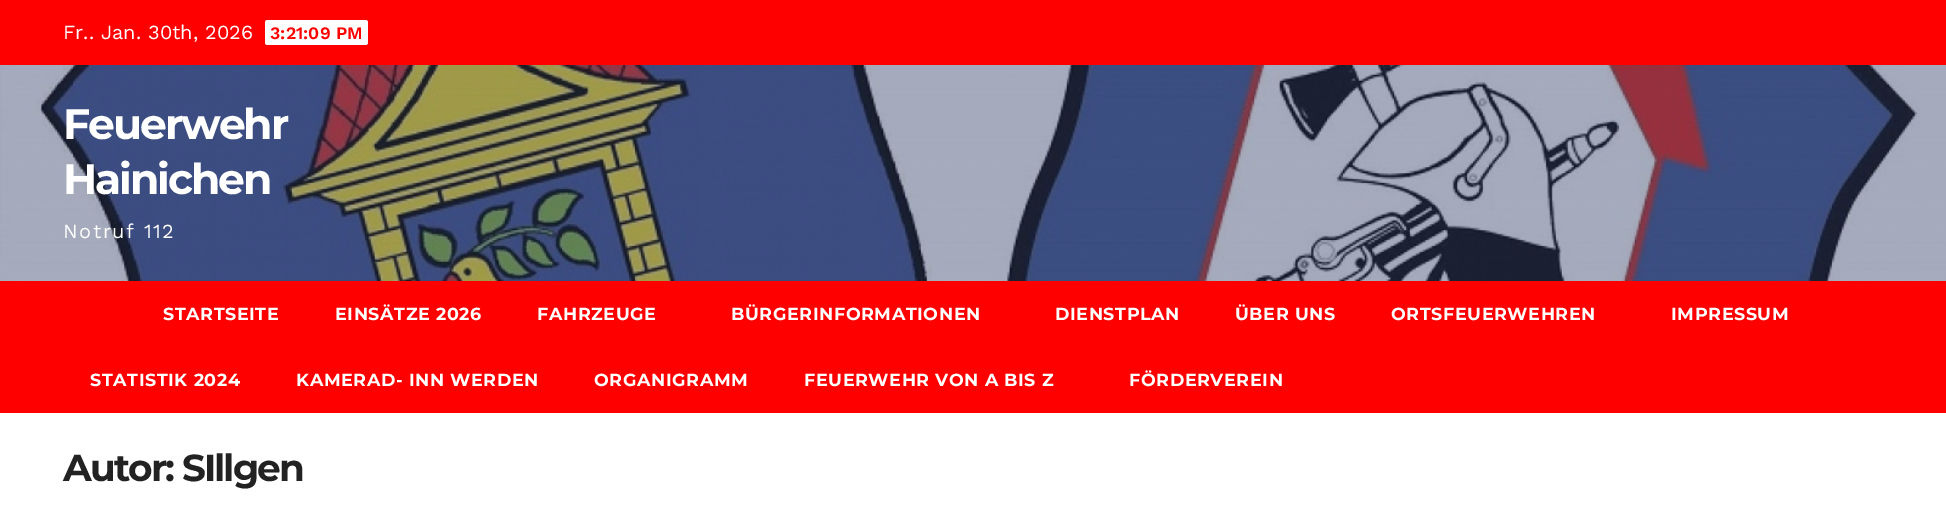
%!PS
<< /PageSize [1946 515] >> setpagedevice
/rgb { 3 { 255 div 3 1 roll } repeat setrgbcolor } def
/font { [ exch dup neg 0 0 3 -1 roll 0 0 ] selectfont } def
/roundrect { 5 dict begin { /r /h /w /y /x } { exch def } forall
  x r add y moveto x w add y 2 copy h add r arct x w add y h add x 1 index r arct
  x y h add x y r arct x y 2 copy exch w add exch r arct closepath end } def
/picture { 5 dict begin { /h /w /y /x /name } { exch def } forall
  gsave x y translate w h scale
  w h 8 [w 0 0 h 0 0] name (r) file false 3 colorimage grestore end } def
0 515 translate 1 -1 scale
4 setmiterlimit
255 0 0 rgb
0 0 1946 515 rectfill
255 255 255 rgb
265 20 103 25 2.5 roundrect fill
(img/1.rgb) 0 65 1946 216 picture
0 413 1946 102 rectfill
/WorkSans-Regular 20 font
63 39 moveto (Fr.. Jan. 30th, 2026) show
/WorkSans-SemiBold 17.5 font
255 0 0 rgb
270 39 moveto (3:21:09 PM) show
/Montserrat-Bold 42.5 font
255 255 255 rgb
63 139 moveto -2.1 0 (Feuerwehr) ashow
63 194 moveto -2.1 0 (Hainichen) ashow
/WorkSans-Regular 20 font
63 238 moveto 1.5 0 (Notruf 112) ashow
/Montserrat-Bold 17.5 font
163 320 moveto 0.6 0 (STARTSEITE) ashow
335 320 moveto 0.6 0 (EINSÄTZE 2026) ashow
537 320 moveto 0.6 0 (FAHRZEUGE) ashow
731 320 moveto 0.6 0 (BÜRGERINFORMATIONEN) ashow
1055 320 moveto 0.6 0 (DIENSTPLAN) ashow
1235 320 moveto 0.6 0 (ÜBER UNS) ashow
1391 320 moveto 0.6 0 (ORTSFEUERWEHREN) ashow
1671 320 moveto 0.6 0 (IMPRESSUM) ashow
90 386 moveto 0.6 0 (STATISTIK 2024) ashow
296 386 moveto 0.6 0 (KAMERAD- INN WERDEN) ashow
594 386 moveto 0.6 0 (ORGANIGRAMM) ashow
804 386 moveto 0.6 0 (FEUERWEHR VON A BIS Z) ashow
1129 386 moveto 0.6 0 (FÖRDERVEREIN) ashow
/Montserrat-Bold 37.5 font
34 34 34 rgb
63 481 moveto -1.9 0 (Autor: SIllgen) ashow
showpage
